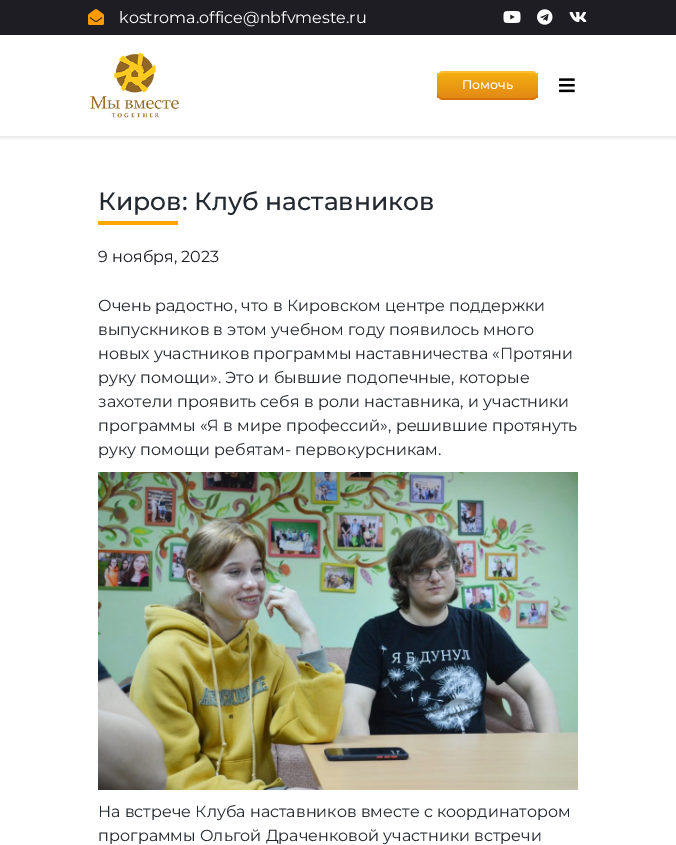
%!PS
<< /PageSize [676 845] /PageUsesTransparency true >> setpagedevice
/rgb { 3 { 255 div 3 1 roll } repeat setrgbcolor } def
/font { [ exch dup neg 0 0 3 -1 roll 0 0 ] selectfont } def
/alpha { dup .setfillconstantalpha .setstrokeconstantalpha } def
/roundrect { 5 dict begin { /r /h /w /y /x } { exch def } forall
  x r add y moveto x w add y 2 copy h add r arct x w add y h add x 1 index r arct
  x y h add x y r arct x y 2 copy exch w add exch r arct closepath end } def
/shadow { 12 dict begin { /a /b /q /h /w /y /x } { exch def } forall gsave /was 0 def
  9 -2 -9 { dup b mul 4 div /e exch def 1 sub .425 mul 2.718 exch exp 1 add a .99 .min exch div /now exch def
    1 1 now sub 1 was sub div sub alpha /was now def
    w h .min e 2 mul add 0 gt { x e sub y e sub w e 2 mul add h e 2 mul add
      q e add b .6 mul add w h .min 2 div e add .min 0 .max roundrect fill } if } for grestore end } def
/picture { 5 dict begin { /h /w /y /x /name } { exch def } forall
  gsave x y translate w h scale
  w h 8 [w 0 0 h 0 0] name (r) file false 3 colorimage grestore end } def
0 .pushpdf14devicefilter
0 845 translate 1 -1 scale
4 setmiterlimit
255 255 255 rgb
0 0 676 845 rectfill
30 29 36 rgb
0 0 676 35 rectfill
(img/1.rgb) 88 9 16 16 picture
(img/2.rgb) 503 11 18 12 picture
(img/3.rgb) 537 9 16 16 picture
(img/4.rgb) 569 12 18 10 picture
gsave
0 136 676 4 rectclip
0 0 0 rgb
0 37 676 101 0 2 0.1 shadow
grestore
(img/5.rgb) 90 53 89 65 picture
gsave
437 71 101 29 6 roundrect clip newpath
gsave 437 73 moveto 538 73 lineto 538 98 lineto 437 98 lineto closepath clip newpath
<< /ShadingType 2 /ColorSpace /DeviceRGB /Coords [488 73 488 98] /Extend [true true] /Function << /FunctionType 2 /Domain [0 1] /C0 [0.953 0.682 0.059] /C1 [0.89 0.537 0.086] /N 1 >> >> shfill grestore
grestore
253 190 51 rgb
443 71 moveto 440 71 437 74 437 77 curveto 437 75 440 73 443 73 curveto 532 73 lineto 535 73 538 75 538 77 curveto 538 74 535 71 532 71 curveto closepath fill
215 114 6 rgb
532 100 moveto 535 100 538 97 538 94 curveto 538 96 535 98 532 98 curveto 443 98 lineto 440 98 437 96 437 94 curveto 437 97 440 100 443 100 curveto closepath fill
(img/6.rgb) 559 78 16 15 picture
255 165 0 rgb
98 221 80 4 rectfill
(img/7.rgb) 98 472 480 318 picture
/Montserrat-Regular 16 font
255 255 255 rgb
119 23 moveto (kostroma.office@nbfvmeste.ru) show
/Montserrat-Medium 12.5 font
462 89 moveto (Помочь) show
/Montserrat-Medium 25 font
35 41 49 rgb
98 210 moveto (Киров: Клуб наставников) show
/Montserrat-Regular 16 font
30 29 36 rgb
98 262 moveto (9 ноября, 2023) show
35 41 49 rgb
[
  [(Очень радостно, что в Кировском центре поддержки) 98 311]
  [(выпускников в этом учебном году появилось много) 98 335]
  [(новых участников программы наставничества «Протяни) 98 359]
  [(руку помощи». Это и бывшие подопечные, которые) 98 383]
  [(захотели проявить себя в роли наставника, и участники) 98 407]
  [(программы «Я в мире профессий», решившие протянуть) 98 431]
  [(руку помощи ребятам- первокурсникам.) 98 455]
  [(На встрече Клуба наставников вместе с координатором) 98 817]
  [(программы Ольгой Драченковой участники встречи) 98 841]
] { aload pop moveto show } forall
.poppdf14devicefilter showpage
